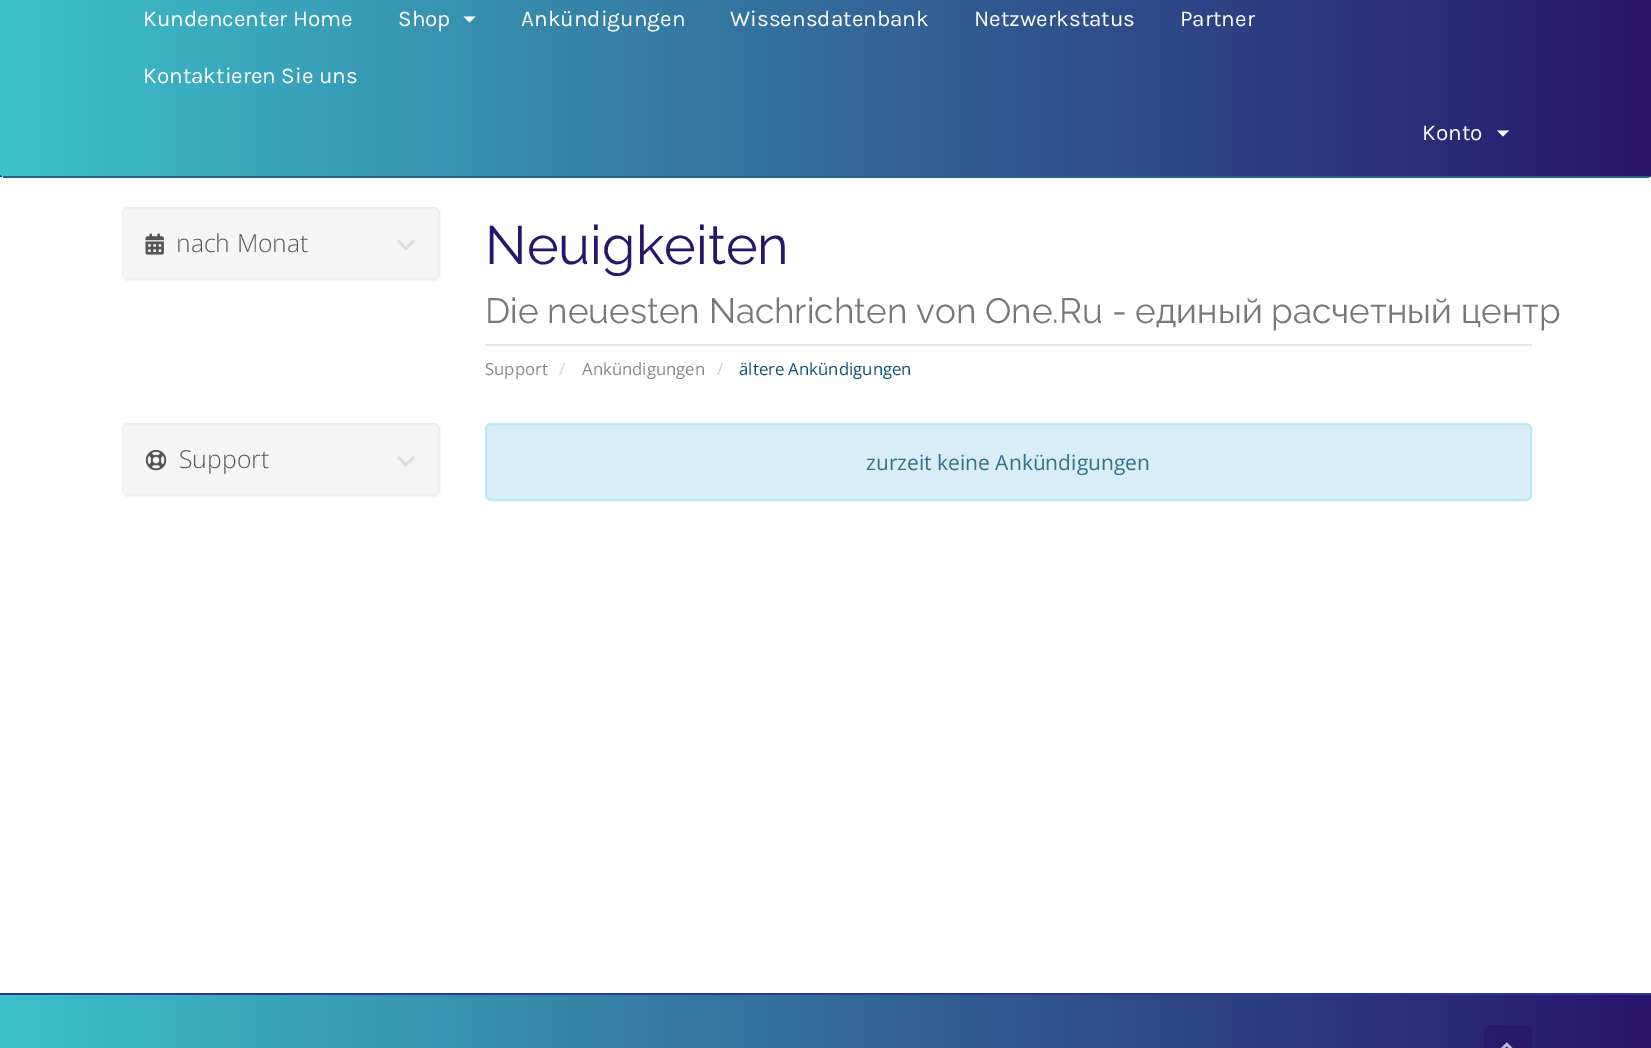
%!PS
<< /PageSize [1651 1048] /PageUsesTransparency true >> setpagedevice
/rgb { 3 { 255 div 3 1 roll } repeat setrgbcolor } def
/font { [ exch dup neg 0 0 3 -1 roll 0 0 ] selectfont } def
/alpha { dup .setfillconstantalpha .setstrokeconstantalpha } def
/roundrect { 5 dict begin { /r /h /w /y /x } { exch def } forall
  x r add y moveto x w add y 2 copy h add r arct x w add y h add x 1 index r arct
  x y h add x y r arct x y 2 copy exch w add exch r arct closepath end } def
/shadow { 12 dict begin { /a /b /q /h /w /y /x } { exch def } forall gsave /was 0 def
  9 -2 -9 { dup b mul 4 div /e exch def 1 sub .425 mul 2.718 exch exp 1 add a .99 .min exch div /now exch def
    1 1 now sub 1 was sub div sub alpha /was now def
    w h .min e 2 mul add 0 gt { x e sub y e sub w e 2 mul add h e 2 mul add
      q e add b .6 mul add w h .min 2 div e add .min 0 .max roundrect fill } if } for grestore end } def
/picture { 5 dict begin { /h /w /y /x /name } { exch def } forall
  gsave x y translate w h scale
  w h 8 [w 0 0 h 0 0] name (r) file false 3 colorimage grestore end } def
0 .pushpdf14devicefilter
0 1048 translate 1 -1 scale
4 setmiterlimit
0 102 135 rgb
0 0 1651 1048 rectfill
gsave 0 -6 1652 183 6 roundrect clip newpath
<< /ShadingType 2 /ColorSpace /DeviceRGB /Coords [0 75 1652 75] /Extend [true true] /Function << /FunctionType 2 /Domain [0 1] /C0 [0.239 0.757 0.796] /C1 [0.161 0.082 0.42] /N 1 >> >> shfill grestore
255 255 255 rgb
0 177 1651 816 rectfill
44 95 134 rgb
3 176 1646 2 rectfill
255 255 255 rgb
463.5 16.5 moveto 475.5 16.5 lineto 469.5 22.5 lineto closepath fill
1497 130.5 moveto 1509 130.5 lineto 1503 136.5 lineto closepath fill
0 0 0 rgb
122 209 318 72 6 1 0.05 shadow
255 255 255 rgb
123 208 316 70 5 roundrect gsave fill grestore
238 238 238 rgb
2 setlinewidth
stroke
245 245 245 rgb
128 209 moveto 433 209 lineto 436 209 438 211 438 214 curveto 438 278 lineto 123 278 lineto 123 214 lineto 123 211 125 209 128 209 curveto closepath fill
(img/1.rgb) 145 233 19 22 picture
(img/2.rgb) 397 239 18 12 picture
231 231 231 rgb
485 344 1047 2 rectfill
0 0 0 rgb
122 425 318 72 6 1 0.05 shadow
255 255 255 rgb
123 424 316 70 5 roundrect gsave fill grestore
238 238 238 rgb
stroke
245 245 245 rgb
128 425 moveto 433 425 lineto 436 425 438 427 438 430 curveto 438 494 lineto 123 494 lineto 123 430 lineto 123 427 125 425 128 425 curveto closepath fill
(img/3.rgb) 145 449 22 22 picture
(img/4.rgb) 397 456 18 11 picture
217 237 247 rgb
486 424 1045 76 5 roundrect gsave fill grestore
188 232 241 rgb
stroke
gsave 0 995 moveto 1651 995 lineto 1651 1048 lineto 0 1048 lineto closepath clip newpath
<< /ShadingType 2 /ColorSpace /DeviceRGB /Coords [0 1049 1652 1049] /Extend [true true] /Function << /FunctionType 2 /Domain [0 1] /C0 [0.239 0.757 0.796] /C1 [0.161 0.082 0.42] /N 1 >> >> shfill grestore
43 53 160 rgb
0 993 1651 2 rectfill
0.7 alpha
41 21 107 rgb
1484 1025 48 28 5 roundrect fill
1 alpha
(img/5.rgb) 1501 1042 12 6 picture
/Karla-Regular 22.5 font
255 255 255 rgb
[
  [(Kundencenter Home) 143 26]
  [(Shop) 398 26]
  [(Ankündigungen) 521 26]
  [(Wissensdatenbank) 730 26]
  [(Netzwerkstatus) 974 26]
  [(Partner) 1180 26]
  [(Kontaktieren Sie uns) 143 83]
  [(Konto) 1422 140]
] { aload pop moveto show } forall
/OpenSans-Light 24.75 font
85 85 85 rgb
176 252 moveto (nach Monat) show
/Raleway-Regular 54 font
41 21 107 rgb
485 264 moveto (Neuigkeiten) show
/Raleway-Regular 35.1 font
119 119 119 rgb
485 323 moveto (Die neuesten Nachrichten von One.Ru - единый расчетный центр) show
/OpenSans-Regular 16.75 font
136 136 136 rgb
485 375 moveto (Support) show
204 204 204 rgb
559 375 moveto (/) show
136 136 136 rgb
582 375 moveto (Ankündigungen) show
204 204 204 rgb
717 375 moveto (/) show
14 80 119 rgb
739 375 moveto (ältere Ankündigungen) show
/OpenSans-Light 24.75 font
85 85 85 rgb
179 468 moveto (Support) show
/OpenSans-Regular 21 font
49 112 143 rgb
866 470 moveto (zurzeit keine Ankündigungen) show
.poppdf14devicefilter showpage
